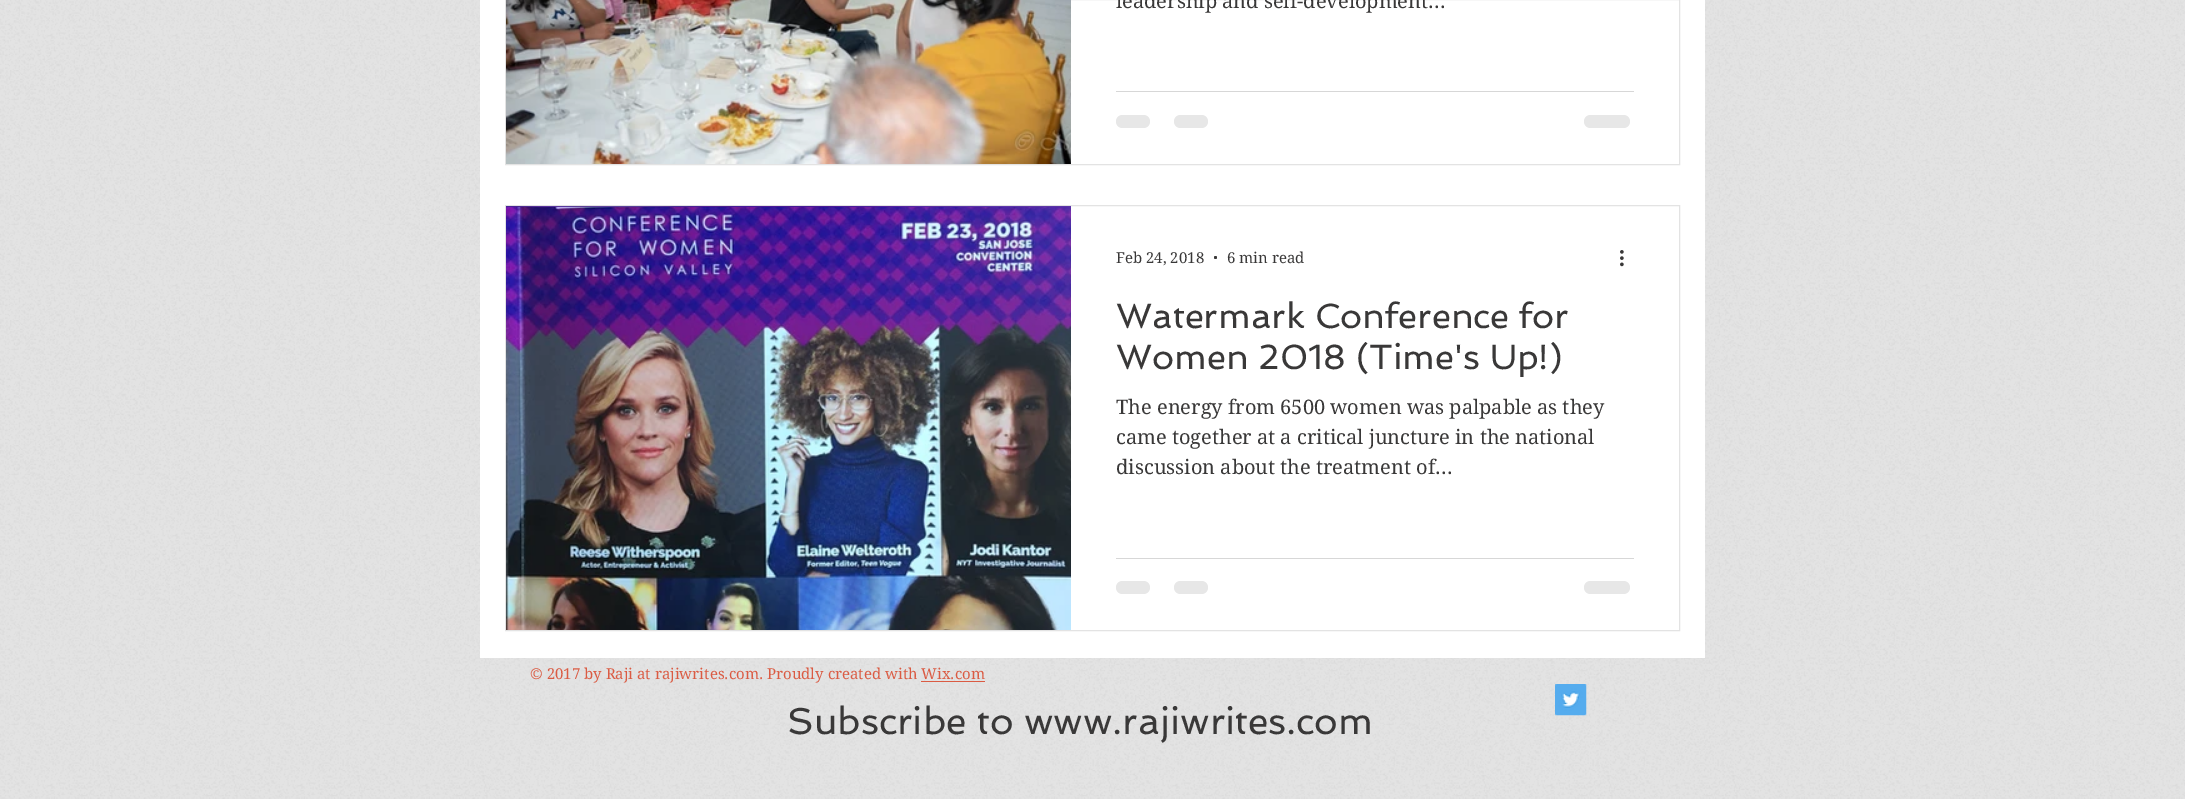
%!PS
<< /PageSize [2185 799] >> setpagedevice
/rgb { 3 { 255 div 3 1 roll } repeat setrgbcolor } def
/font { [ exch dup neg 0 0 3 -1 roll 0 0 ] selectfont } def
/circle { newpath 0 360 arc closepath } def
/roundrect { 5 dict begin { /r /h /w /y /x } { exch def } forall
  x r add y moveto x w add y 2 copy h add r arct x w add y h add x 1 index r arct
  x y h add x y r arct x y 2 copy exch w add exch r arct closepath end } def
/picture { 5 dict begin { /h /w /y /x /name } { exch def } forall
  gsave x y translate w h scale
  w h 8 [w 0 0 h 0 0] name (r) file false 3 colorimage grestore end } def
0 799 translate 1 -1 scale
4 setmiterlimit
227 227 227 rgb
0 0 2185 799 rectfill
(img/1.rgb) 0 0 2185 799 picture
255 255 255 rgb
480 0 1225 658 rectfill
227 227 227 rgb
505.5 -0.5 1174 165 rectstroke
(img/2.rgb) 506 0 565 164 picture
215 215 215 rgb
1116 91 518 1 rectfill
231 231 231 rgb
1116 115 34 13 6.5 roundrect fill
1174 115 34 13 6.5 roundrect fill
1584 115 46 13 6.5 roundrect fill
227 227 227 rgb
505.5 205.5 1174 425 rectstroke
(img/3.rgb) 506 206 565 1 picture
(img/4.rgb) 506 207 565 423 picture
57 56 56 rgb
1215.5 257.5 1.5 circle fill
(img/5.rgb) 1620 250 4 17 picture
215 215 215 rgb
1116 558 518 1 rectfill
231 231 231 rgb
1116 581 34 13 6.5 roundrect fill
1174 581 34 13 6.5 roundrect fill
1584 581 46 13 6.5 roundrect fill
219 91 67 rgb
921 681 64 1 rectfill
(img/6.rgb) 1555 684 32 32 picture
/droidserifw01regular-Regular 20 font
57 56 56 rgb
1116 8 moveto (leadership and self-development...) show
/droidserifw01regular-Regular 15 font
1116 263 moveto (Feb 24, 2018) show
1227 263 moveto (6 min read) show
/Spinnaker-Regular 35 font
1116 328 moveto (Watermark Conference for) show
1116 369 moveto (Women 2018 \(Time's Up!\)) show
/droidserifw01regular-Regular 20 font
[
  [(The energy from 6500 women was palpable as they) 1116 414]
  [(came together at a critical juncture in the national) 1116 444]
  [(discussion about the treatment of...) 1116 474]
] { aload pop moveto show } forall
/droidserifw01regular-Regular 15 font
219 91 67 rgb
530 679 moveto (© 2017 by Raji at rajiwrites.com. Proudly created with Wix.com) show
/Spinnaker-Regular 37.5 font
57 56 56 rgb
787 734 moveto (Subscribe to www.rajiwrites.com) show
showpage
